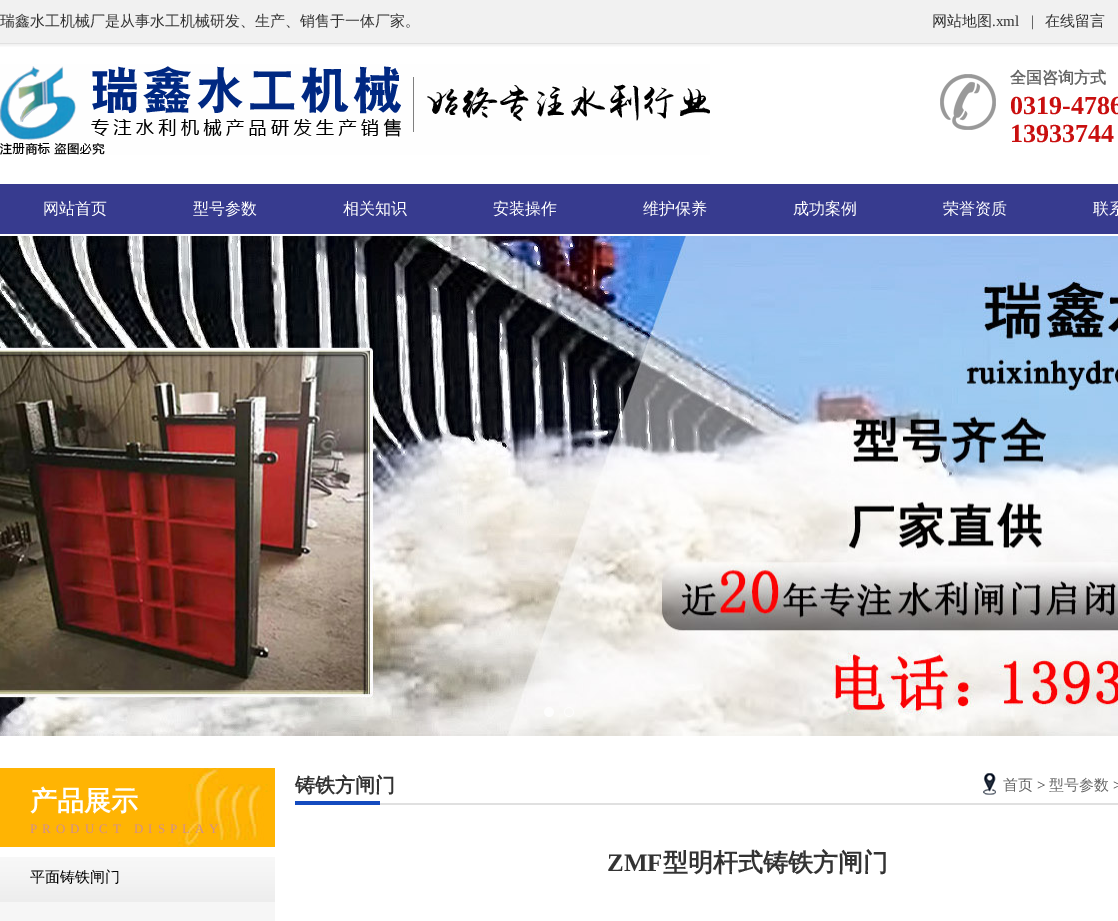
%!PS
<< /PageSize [1118 921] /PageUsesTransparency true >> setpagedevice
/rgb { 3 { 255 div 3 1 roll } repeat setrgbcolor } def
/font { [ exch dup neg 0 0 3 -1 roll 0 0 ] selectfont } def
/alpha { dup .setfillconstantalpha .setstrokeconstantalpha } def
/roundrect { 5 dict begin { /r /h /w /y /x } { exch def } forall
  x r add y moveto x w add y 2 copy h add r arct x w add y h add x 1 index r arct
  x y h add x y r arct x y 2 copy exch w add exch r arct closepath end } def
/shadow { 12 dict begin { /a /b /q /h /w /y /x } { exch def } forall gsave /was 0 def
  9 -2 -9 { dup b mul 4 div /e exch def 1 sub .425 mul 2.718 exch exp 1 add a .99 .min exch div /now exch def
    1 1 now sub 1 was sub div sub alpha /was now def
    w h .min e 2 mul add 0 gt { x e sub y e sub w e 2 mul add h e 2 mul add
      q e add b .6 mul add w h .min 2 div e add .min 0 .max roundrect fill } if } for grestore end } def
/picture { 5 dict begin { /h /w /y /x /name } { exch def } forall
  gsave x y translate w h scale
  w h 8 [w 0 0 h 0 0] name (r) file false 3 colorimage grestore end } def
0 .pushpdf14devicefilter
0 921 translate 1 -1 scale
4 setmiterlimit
255 255 255 rgb
0 0 1118 921 rectfill
240 240 240 rgb
-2 -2 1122 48 0 1 1 shadow
225 225 225 rgb
0 43 1118 1 rectfill
(img/1.rgb) 0 64 710 91 picture
(img/2.rgb) 940 74 56 56 picture
55 59 143 rgb
0 184 1118 50 rectfill
(img/3.rgb) 0 236 1118 500 picture
(img/4.rgb) 544 707 10 10 picture
(img/5.rgb) 564 707 10 10 picture
(img/6.rgb) 0 768 275 79 picture
(img/7.rgb) 0 857 275 45 picture
246 246 246 rgb
0 902 275 19 rectfill
224 224 224 rgb
380 803 738 2 rectfill
(img/8.rgb) 983 773 13 22 picture
20 75 191 rgb
295 801 85 4 rectfill
/WenQuanYiZenHei-Medium 15 font
51 51 51 rgb
0 26 moveto (瑞鑫水工机械厂是从事水工机械研发、生产、销售于一体厂家。) show
932 26 moveto (网站地图) show
/LiberationSerif-Regular 15 font
992 26 moveto (.xml) show
1031 26 moveto (|) show
/WenQuanYiZenHei-Medium 15 font
1045 26 moveto (在线留言) show
/WenQuanYiZenHei-Bold 16 font
102 102 102 rgb
1010 83 moveto (全国咨询方式) show
/LiberationSerif-Bold 26 font
201 15 15 rgb
1010 114 moveto (0319-4786) show
1010 142 moveto (13933744) show
/WenQuanYiZenHei-Medium 16 font
255 255 255 rgb
[
  [(网站首页) 43 214]
  [(型号参数) 193 214]
  [(相关知识) 343 214]
  [(安装操作) 493 214]
  [(维护保养) 643 214]
  [(成功案例) 793 214]
  [(荣誉资质) 943 214]
  [(联系) 1093 214]
] { aload pop moveto show } forall
/WenQuanYiZenHei-Bold 27 font
30 810 moveto (产品展示) show
/LiberationSerif-Regular 13 font
208 142 146 rgb
30 833 moveto 5 0 (PRODUCT DISPLAY) ashow
/WenQuanYiZenHei-Medium 15 font
0 0 0 rgb
30 882 moveto (平面铸铁闸门) show
/WenQuanYiZenHei-Bold 20 font
51 51 51 rgb
295 792 moveto (铸铁方闸门) show
/WenQuanYiZenHei-Medium 15 font
102 102 102 rgb
1003 790 moveto (首页) show
/LiberationSerif-Regular 15 font
51 51 51 rgb
1037 790 moveto (>) show
/WenQuanYiZenHei-Medium 15 font
102 102 102 rgb
1049 790 moveto (型号参数) show
/LiberationSerif-Regular 15 font
51 51 51 rgb
1113 790 moveto (>) show
/LiberationSerif-Bold 25 font
607 871 moveto (ZMF) show
/WenQuanYiZenHei-Bold 25 font
663 871 moveto (型明杆式铸铁方闸门) show
.poppdf14devicefilter showpage
